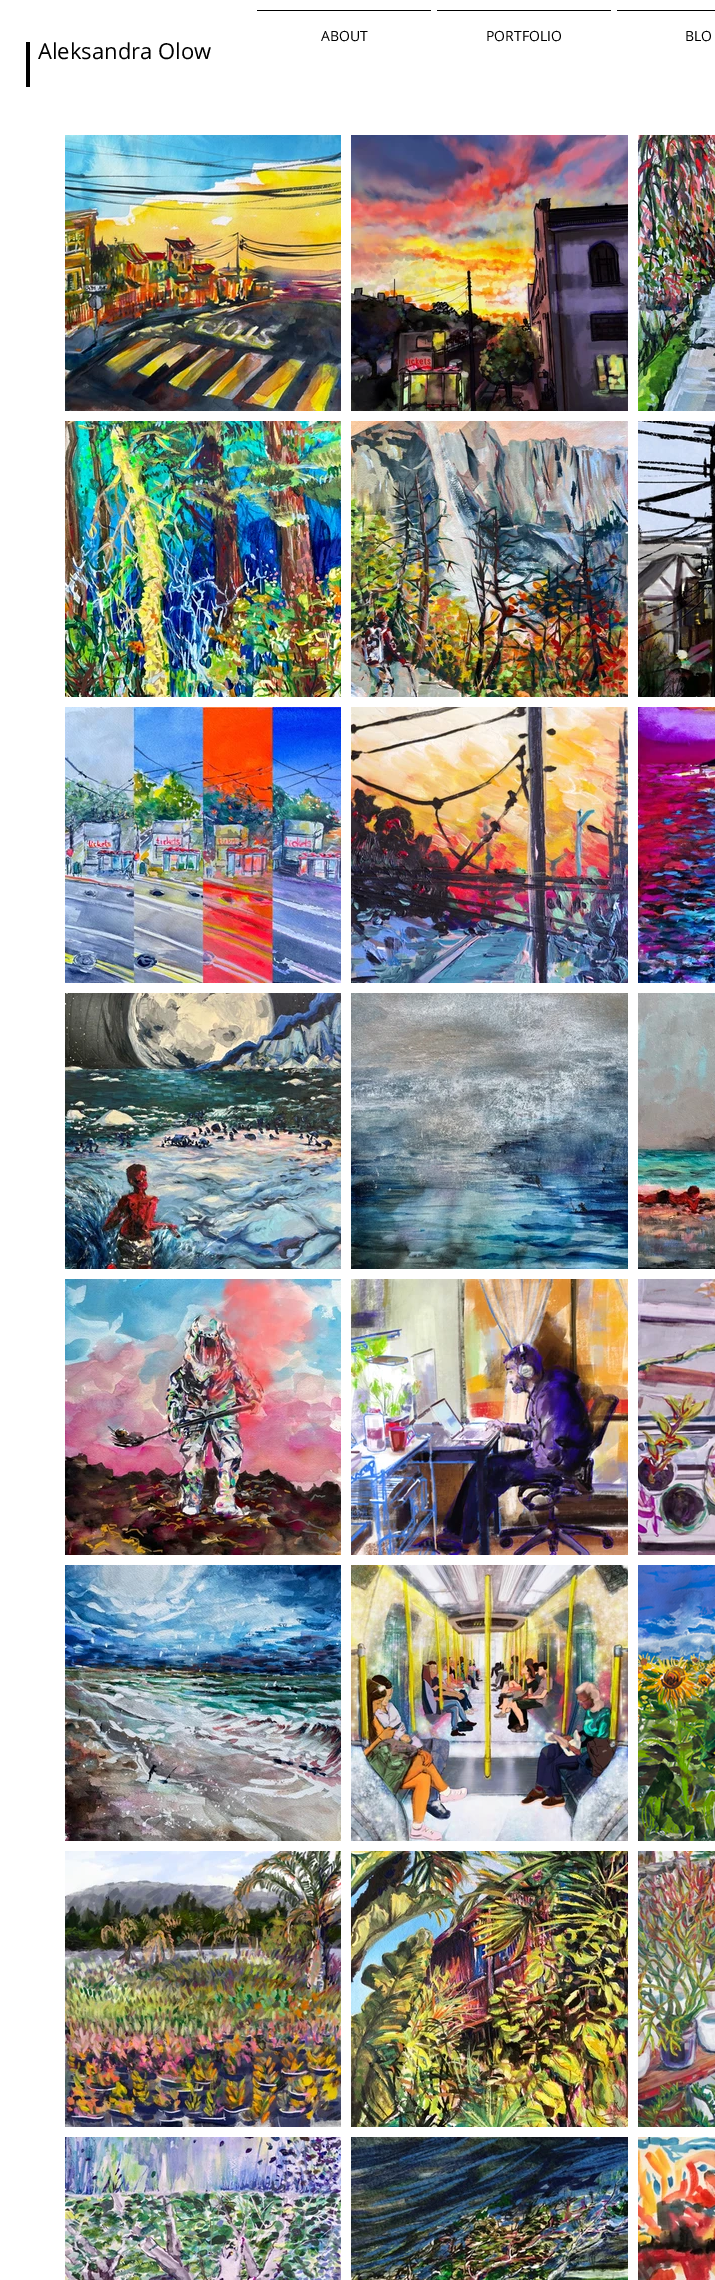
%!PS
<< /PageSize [715 2280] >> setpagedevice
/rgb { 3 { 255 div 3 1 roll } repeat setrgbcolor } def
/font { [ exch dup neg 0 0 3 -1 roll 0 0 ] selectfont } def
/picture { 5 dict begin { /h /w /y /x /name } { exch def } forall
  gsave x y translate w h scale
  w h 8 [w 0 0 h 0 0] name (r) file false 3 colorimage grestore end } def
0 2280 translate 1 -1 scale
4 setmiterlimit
255 255 255 rgb
0 0 715 2280 rectfill
[
  [257 10 174 1 0 0 0]
  [437 10 174 1 0 0 0]
  [617 10 98 1 0 0 0]
  [26 42 4 45 0 0 0]
] { aload pop rgb rectfill } forall
(img/1.rgb) 65 135 276 276 picture
(img/2.rgb) 351 135 277 276 picture
(img/3.rgb) 638 135 77 276 picture
(img/4.rgb) 65 421 276 276 picture
(img/5.rgb) 351 421 277 276 picture
(img/6.rgb) 638 421 77 276 picture
(img/7.rgb) 65 707 276 276 picture
(img/8.rgb) 351 707 277 276 picture
(img/9.rgb) 638 707 77 276 picture
(img/10.rgb) 65 993 276 276 picture
(img/11.rgb) 351 993 277 276 picture
(img/12.rgb) 638 993 77 276 picture
(img/13.rgb) 65 1279 276 276 picture
(img/14.rgb) 351 1279 277 276 picture
(img/15.rgb) 638 1279 77 276 picture
(img/16.rgb) 65 1565 276 276 picture
(img/17.rgb) 351 1565 277 276 picture
(img/18.rgb) 638 1565 77 276 picture
(img/19.rgb) 65 1851 276 276 picture
(img/20.rgb) 351 1851 277 276 picture
(img/21.rgb) 638 1851 77 276 picture
(img/22.rgb) 65 2137 276 143 picture
(img/23.rgb) 351 2137 277 143 picture
(img/24.rgb) 638 2137 77 143 picture
/OpenSans-Regular 14 font
[
  [(ABOUT) 321 41]
  [(PORTFOLIO) 486 41]
  [(BLO) 685 41]
] { aload pop moveto show } forall
/OpenSans-Regular 22 font
38 59 moveto (Aleksandra Olow) show
showpage
